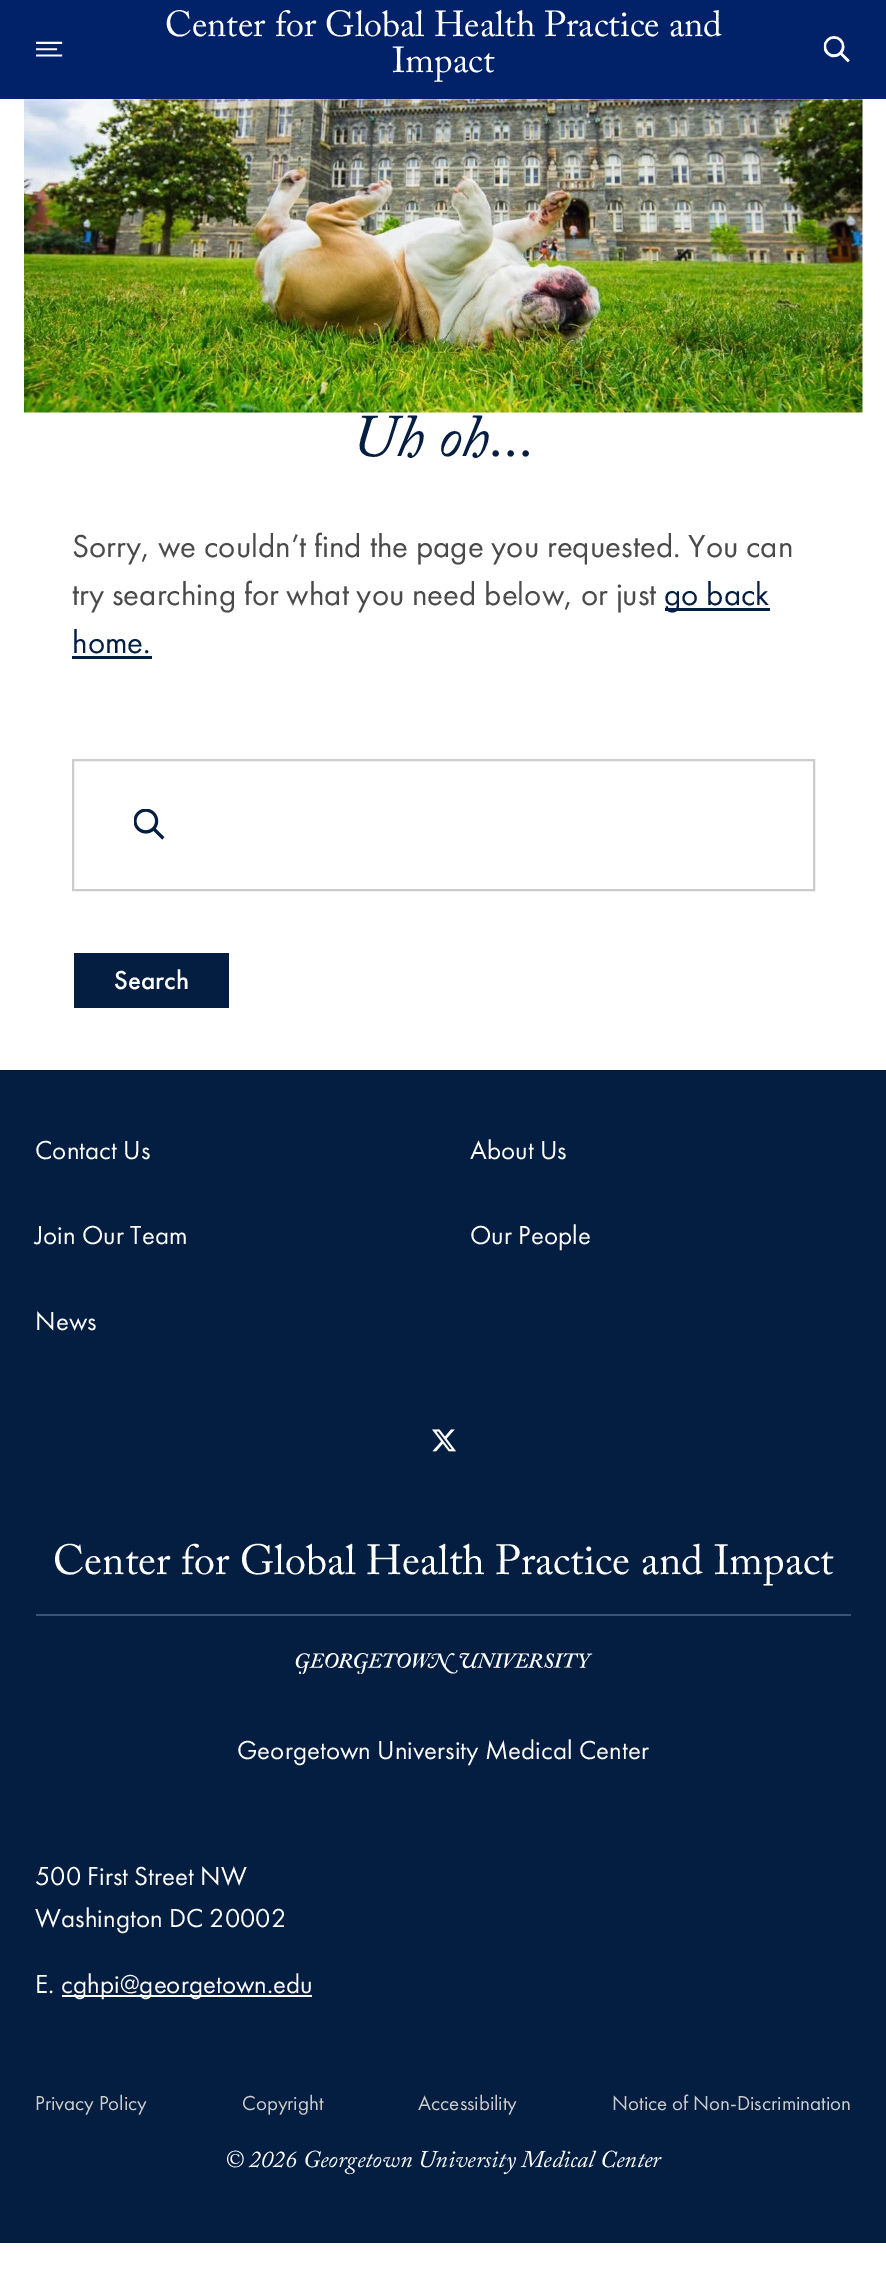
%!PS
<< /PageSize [886 2279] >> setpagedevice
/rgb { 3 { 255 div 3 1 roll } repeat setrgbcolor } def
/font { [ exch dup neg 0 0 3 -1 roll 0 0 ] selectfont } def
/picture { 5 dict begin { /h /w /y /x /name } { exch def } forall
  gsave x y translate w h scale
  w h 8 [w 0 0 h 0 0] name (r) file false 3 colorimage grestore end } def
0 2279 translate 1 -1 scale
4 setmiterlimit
255 255 255 rgb
0 0 886 2279 rectfill
1 33 105 rgb
0 0 886 99 rectfill
(img/1.rgb) 36 41 27 16 picture
(img/2.rgb) 823 36 27 27 picture
(img/3.rgb) 24 99 839 314 picture
4 30 66 rgb
665 608 105 3 rectfill
72 656 80 3 rectfill
(img/4.rgb) 134 809 31 31 picture
204 204 204 rgb
2 setlinewidth
73 760 741 130 rectstroke
4 30 66 rgb
74 953 155 55 rectfill
0 1070 886 1173 rectfill
(img/5.rgb) 432 1429 24 23 picture
57 83 119 rgb
36 1614 815 2 rectfill
(img/6.rgb) 295 1653 298 21 picture
255 255 255 rgb
62 1995 250 2 rectfill
/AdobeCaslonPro-Regular 36 font
165 36 moveto (Center for Global Health Practice and) show
392 72 moveto (Impact) show
/AdobeCaslonPro-Italic 60 font
4 30 66 rgb
352 456 moveto (Uh oh...) show
/FuturaPT-Regular 33 font
74 74 74 rgb
72 557 moveto (Sorry, we couldn’t find the page you requested. You can) show
72 605 moveto (try searching for what you need below, or just) show
4 30 66 rgb
664 605 moveto (go back) show
72 653 moveto (home.) show
/FuturaPT-Medium 27 font
255 255 255 rgb
114 989 moveto (Search) show
/FuturaPT-Regular 27 font
[
  [(Contact Us) 35 1159]
  [(About Us) 470 1159]
  [(Join Our Team) 35 1244]
  [(Our People) 470 1244]
  [(News) 35 1330]
] { aload pop moveto show } forall
/AdobeCaslonPro-Regular 42 font
53 1574 moveto (Center for Global Health Practice and Impact) show
/FuturaPT-Regular 27 font
[
  [(Georgetown University Medical Center) 237 1759]
  [(500 First Street NW) 35 1885]
  [(Washington DC 20002) 35 1927]
  [(E.) 35 1993]
  [(cghpi@georgetown.edu) 61 1993]
] { aload pop moveto show } forall
/FuturaPT-Regular 21 font
204 204 204 rgb
[
  [(Privacy Policy) 35 2110]
  [(Copyright) 242 2110]
  [(Accessibility) 418 2110]
  [(Notice of Non-Discrimination) 612 2110]
] { aload pop moveto show } forall
/AdobeCaslonPro-Italic 24 font
255 255 255 rgb
225 2167 moveto (© 2026 Georgetown University Medical Center) show
showpage
